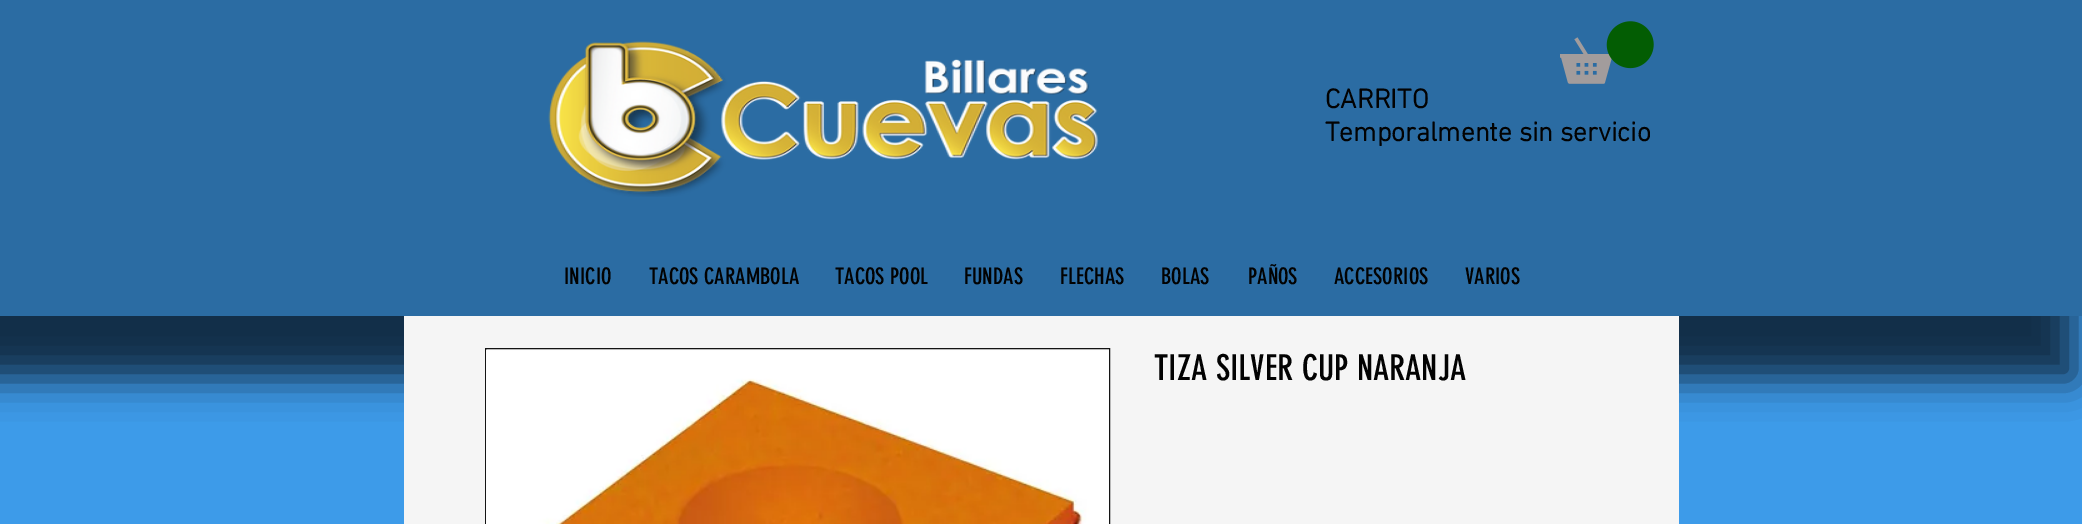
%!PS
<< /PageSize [2082 524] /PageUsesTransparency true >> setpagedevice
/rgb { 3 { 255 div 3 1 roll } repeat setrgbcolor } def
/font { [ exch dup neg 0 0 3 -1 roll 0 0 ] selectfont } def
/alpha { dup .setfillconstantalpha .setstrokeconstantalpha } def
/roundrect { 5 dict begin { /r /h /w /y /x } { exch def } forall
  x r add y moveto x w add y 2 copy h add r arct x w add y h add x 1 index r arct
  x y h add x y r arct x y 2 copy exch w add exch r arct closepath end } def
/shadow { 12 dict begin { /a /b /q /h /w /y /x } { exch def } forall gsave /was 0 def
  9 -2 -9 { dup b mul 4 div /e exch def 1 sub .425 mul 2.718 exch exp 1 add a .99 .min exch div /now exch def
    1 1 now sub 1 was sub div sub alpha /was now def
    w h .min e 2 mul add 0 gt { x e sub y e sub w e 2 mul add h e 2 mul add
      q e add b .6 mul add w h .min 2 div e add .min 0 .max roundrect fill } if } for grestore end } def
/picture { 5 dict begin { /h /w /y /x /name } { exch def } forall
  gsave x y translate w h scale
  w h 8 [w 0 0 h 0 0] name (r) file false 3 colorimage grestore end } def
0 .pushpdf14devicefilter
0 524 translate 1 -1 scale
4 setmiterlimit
61 155 233 rgb
0 0 2082 524 rectfill
0 0 0 rgb
-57 -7 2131 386 0 19 0.7 shadow
43 108 163 rgb
0 0 2082 316 rectfill
(img/1.rgb) 548 41 551 156 picture
(img/2.rgb) 1560 21 94 63 picture
245 245 245 rgb
404 316 1275 208 rectfill
20 20 20 rgb
485.5 348.5 624 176 rectstroke
(img/3.rgb) 486 350 623 174 picture
/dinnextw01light-Bold 27.5 font
2 2 2 rgb
1325 108 moveto (CARRITO) show
1325 141 moveto (Temporalmente sin servicio) show
/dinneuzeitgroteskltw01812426-Regular 22.5 font
[
  [(INICIO) 564 284]
  [(TACOS CARAMBOLA) 649 284]
  [(TACOS POOL) 835 284]
  [(FUNDAS) 964 284]
  [(FLECHAS) 1060 284]
  [(BOLAS) 1161 284]
  [(PAÑOS) 1248 284]
  [(ACCESORIOS) 1334 284]
  [(VARIOS) 1465 284]
] { aload pop moveto show } forall
/dinneuzeitgroteskltw01812426-Regular 35 font
1154 380 moveto (TIZA SILVER CUP NARANJA) show
.poppdf14devicefilter showpage
